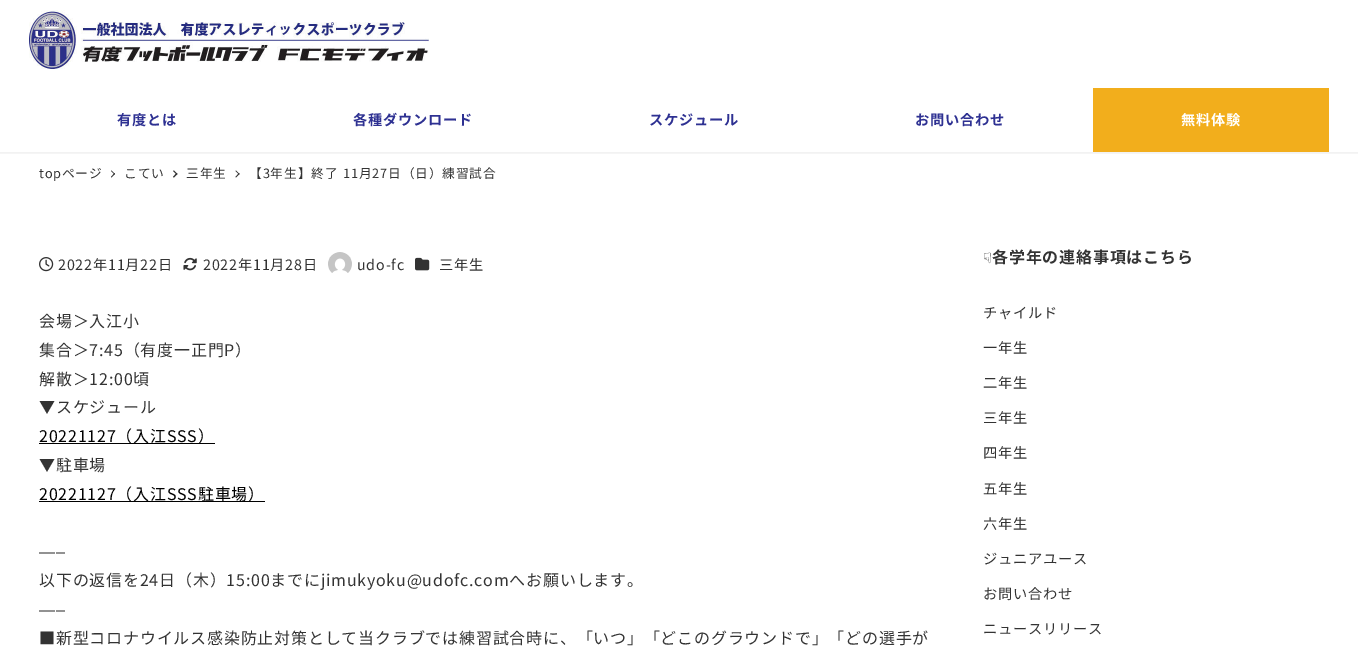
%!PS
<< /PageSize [1358 651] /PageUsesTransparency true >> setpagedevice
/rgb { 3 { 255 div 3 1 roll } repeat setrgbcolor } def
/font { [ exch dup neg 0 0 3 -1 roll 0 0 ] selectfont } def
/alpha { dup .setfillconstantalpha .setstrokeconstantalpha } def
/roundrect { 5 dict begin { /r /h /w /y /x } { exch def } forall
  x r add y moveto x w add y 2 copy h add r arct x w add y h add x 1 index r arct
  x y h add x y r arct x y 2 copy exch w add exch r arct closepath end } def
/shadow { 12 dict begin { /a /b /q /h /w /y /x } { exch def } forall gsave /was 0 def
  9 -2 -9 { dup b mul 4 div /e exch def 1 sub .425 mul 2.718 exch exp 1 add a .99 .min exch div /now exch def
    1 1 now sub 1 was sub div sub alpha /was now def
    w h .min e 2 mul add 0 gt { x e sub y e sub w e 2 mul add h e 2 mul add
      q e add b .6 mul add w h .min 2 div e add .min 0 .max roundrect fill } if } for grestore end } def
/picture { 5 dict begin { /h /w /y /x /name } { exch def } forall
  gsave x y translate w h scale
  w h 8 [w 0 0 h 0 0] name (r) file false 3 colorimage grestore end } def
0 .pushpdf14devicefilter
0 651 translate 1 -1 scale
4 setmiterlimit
255 255 255 rgb
0 0 1358 651 rectfill
gsave
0 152 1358 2 rectclip
0 0 0 rgb
-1 0 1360 154 0 1 0.05 shadow
grestore
(img/1.rgb) 29 10 400 59 picture
242 174 28 rgb
1093 88 236 64 rectfill
51 51 51 rgb
111.5 170.5 moveto 115 174 lineto 114.5 174.5 lineto 111 171 lineto closepath fill
114.5 173 moveto 115 174 lineto 111.5 177.5 lineto 111 177 lineto closepath fill
174 170.5 moveto 177.5 174 lineto 176.5 174.5 lineto 173 171 lineto closepath fill
176.5 173 moveto 177.5 174 lineto 174 177.5 lineto 173 177 lineto closepath fill
236 170.5 moveto 239.5 174 lineto 239 174.5 lineto 235.5 171 lineto closepath fill
239 173 moveto 239.5 174 lineto 236 177.5 lineto 235.5 177 lineto closepath fill
(img/2.rgb) 39 257 15 15 picture
(img/3.rgb) 183 257 14 14 picture
(img/4.rgb) 328 252 24 21 picture
(img/5.rgb) 415 257 15 14 picture
0 0 0 rgb
39 443 176 1 rectfill
39 501 226 1 rectfill
/NotoSansJP-Bold 14.25 font
46 49 146 rgb
117 125 moveto 0.8 0 (有度とは) ashow
353 125 moveto 0.8 0 (各種ダウンロード) ashow
649 125 moveto 0.8 0 (スケジュール) ashow
915 125 moveto 0.8 0 (お問い合わせ) ashow
255 255 255 rgb
1181 125 moveto 0.8 0 (無料体験) ashow
/NotoSansJP-Regular 12.75 font
51 51 51 rgb
39 178 moveto 0.8 0 (topページ) ashow
124 178 moveto 0.8 0 (こてい) ashow
186 178 moveto 0.8 0 (三年生) ashow
249 178 moveto 0.8 0 (【3年生】終了) ashow
343 178 moveto 0.8 0 (11月27日（日）練習試合) ashow
/NotoSansJP-Regular 14.25 font
58 270 moveto 0.8 0 (2022年11月22日) ashow
203 270 moveto 0.8 0 (2022年11月28日) ashow
357 270 moveto 0.8 0 (udo-fc) ashow
439 270 moveto 0.8 0 (三年生) ashow
/NotoSansJP-Regular 16 font
39 327 moveto 0.8 0 (会場＞入江小) ashow
39 356 moveto 0.8 0 (集合＞7:45（有度一正門P）) ashow
39 385 moveto 0.8 0 (解散＞12:00頃) ashow
39 413 moveto 0.8 0 (▼スケジュール) ashow
0 0 0 rgb
39 442 moveto 0.8 0 (20221127（入江SSS）) ashow
51 51 51 rgb
39 471 moveto 0.8 0 (▼駐車場) ashow
0 0 0 rgb
39 500 moveto 0.8 0 (20221127（入江SSS駐車場）) ashow
/LiberationSans-Regular 16 font
51 51 51 rgb
39 557 moveto 0.8 0 (—–) ashow
/NotoSansJP-Regular 16 font
39 586 moveto 0.8 0 (以下の返信を24日（木）15:00までにjimukyoku@udofc.comへお願いします。) ashow
/LiberationSans-Regular 16 font
39 615 moveto 0.8 0 (—–) ashow
/NotoSansJP-Regular 16 font
39 644 moveto 0.8 0 (■新型コロナウイルス感染防止対策として当クラブでは練習試合時に、「いつ」「どこのグラウンドで」「どの選手が) ashow
/DejaVuSans-Regular 14.25 font
983 263 moveto 0.8 0 (☟) ashow
/NotoSansJP-Bold 16 font
992 263 moveto 0.8 0 (各学年の連絡事項はこちら) ashow
/NotoSansJP-Regular 14.25 font
983 318 moveto 0.8 0 (チャイルド) ashow
983 353 moveto 0.8 0 (一年生) ashow
983 388 moveto 0.8 0 (二年生) ashow
983 423 moveto 0.8 0 (三年生) ashow
983 458 moveto 0.8 0 (四年生) ashow
983 494 moveto 0.8 0 (五年生) ashow
983 529 moveto 0.8 0 (六年生) ashow
983 564 moveto 0.8 0 (ジュニアユース) ashow
983 599 moveto 0.8 0 (お問い合わせ) ashow
983 634 moveto 0.8 0 (ニュースリリース) ashow
.poppdf14devicefilter showpage
